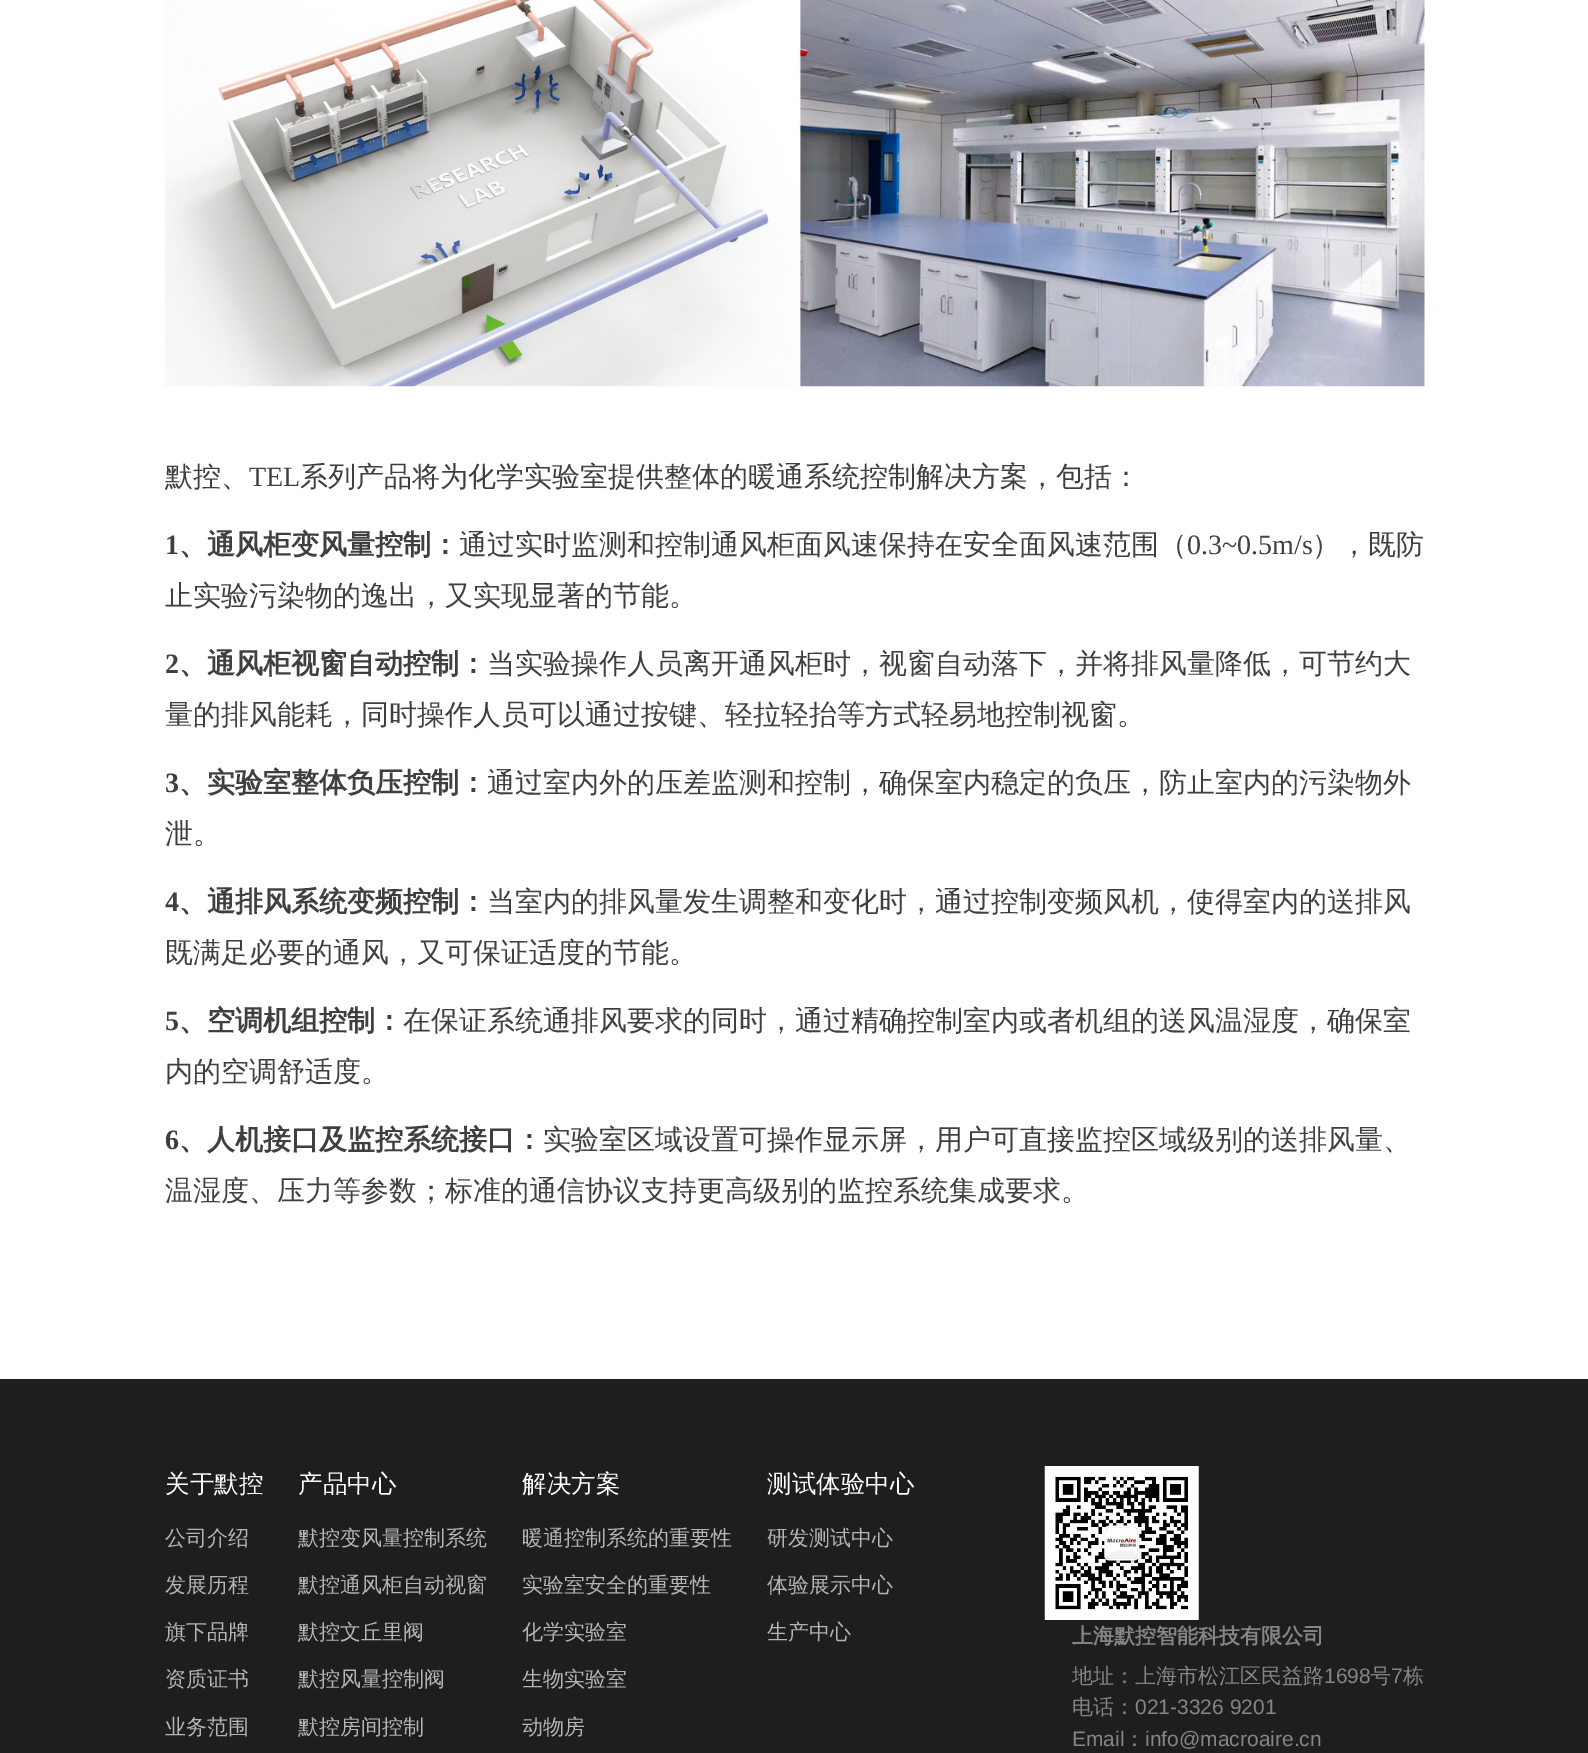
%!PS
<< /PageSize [1588 1753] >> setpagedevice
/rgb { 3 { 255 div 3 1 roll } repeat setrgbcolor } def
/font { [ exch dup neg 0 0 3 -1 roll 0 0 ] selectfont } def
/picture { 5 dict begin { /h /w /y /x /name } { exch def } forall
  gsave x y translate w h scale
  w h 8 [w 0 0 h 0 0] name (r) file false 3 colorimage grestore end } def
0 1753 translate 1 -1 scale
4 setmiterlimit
255 255 255 rgb
0 0 1588 1753 rectfill
(img/1.rgb) 164 0 1261 387 picture
28 30 32 rgb
0 1379 1588 374 rectfill
(img/2.rgb) 1044 1466 155 154 picture
/WenQuanYiZenHei-Medium 28 font
63 63 63 rgb
165 486 moveto (默控、) show
/LiberationSerif-Regular 28 font
249 486 moveto (TEL) show
/WenQuanYiZenHei-Medium 28 font
300 486 moveto (系列产品将为化学实验室提供整体的暖通系统控制解决方案，包括：) show
/LiberationSerif-Bold 28 font
165 554 moveto (1) show
/WenQuanYiZenHei-Bold 28 font
179 554 moveto (、通风柜变风量控制：) show
/WenQuanYiZenHei-Medium 28 font
459 554 moveto (通过实时监测和控制通风柜面风速保持在安全面风速范围（) show
/LiberationSerif-Regular 28 font
1187 554 moveto (0.3~0.5m/s) show
/WenQuanYiZenHei-Medium 28 font
1312 554 moveto (），既防) show
165 605 moveto (止实验污染物的逸出，又实现显著的节能。) show
/LiberationSerif-Bold 28 font
165 673 moveto (2) show
/WenQuanYiZenHei-Bold 28 font
179 673 moveto (、通风柜视窗自动控制：) show
/WenQuanYiZenHei-Medium 28 font
487 673 moveto (当实验操作人员离开通风柜时，视窗自动落下，并将排风量降低，可节约大) show
165 724 moveto (量的排风能耗，同时操作人员可以通过按键、轻拉轻抬等方式轻易地控制视窗。) show
/LiberationSerif-Bold 28 font
165 792 moveto (3) show
/WenQuanYiZenHei-Bold 28 font
179 792 moveto (、实验室整体负压控制：) show
/WenQuanYiZenHei-Medium 28 font
487 792 moveto (通过室内外的压差监测和控制，确保室内稳定的负压，防止室内的污染物外) show
165 843 moveto (泄。) show
/LiberationSerif-Bold 28 font
165 911 moveto (4) show
/WenQuanYiZenHei-Bold 28 font
179 911 moveto (、通排风系统变频控制：) show
/WenQuanYiZenHei-Medium 28 font
487 911 moveto (当室内的排风量发生调整和变化时，通过控制变频风机，使得室内的送排风) show
165 962 moveto (既满足必要的通风，又可保证适度的节能。) show
/LiberationSerif-Bold 28 font
165 1030 moveto (5) show
/WenQuanYiZenHei-Bold 28 font
179 1030 moveto (、空调机组控制：) show
/WenQuanYiZenHei-Medium 28 font
403 1030 moveto (在保证系统通排风要求的同时，通过精确控制室内或者机组的送风温湿度，确保室) show
165 1081 moveto (内的空调舒适度。) show
/LiberationSerif-Bold 28 font
165 1149 moveto (6) show
/WenQuanYiZenHei-Bold 28 font
179 1149 moveto (、人机接口及监控系统接口：) show
/WenQuanYiZenHei-Medium 28 font
543 1149 moveto (实验室区域设置可操作显示屏，用户可直接监控区域级别的送排风量、) show
165 1200 moveto (温湿度、压力等参数；标准的通信协议支持更高级别的监控系统集成要求。) show
/WenQuanYiZenHei-Medium 24.5 font
255 255 255 rgb
165 1492 moveto (关于默控) show
/WenQuanYiZenHei-Medium 21 font
181 181 181 rgb
[
  [(公司介绍) 165 1545]
  [(发展历程) 165 1592]
  [(旗下品牌) 165 1639]
  [(资质证书) 165 1686]
  [(业务范围) 165 1734]
] { aload pop moveto show } forall
/WenQuanYiZenHei-Medium 24.5 font
255 255 255 rgb
298 1492 moveto (产品中心) show
/WenQuanYiZenHei-Medium 21 font
181 181 181 rgb
[
  [(默控变风量控制系统) 298 1545]
  [(默控通风柜自动视窗) 298 1592]
  [(默控文丘里阀) 298 1639]
  [(默控风量控制阀) 298 1686]
  [(默控房间控制) 298 1734]
] { aload pop moveto show } forall
/WenQuanYiZenHei-Medium 24.5 font
255 255 255 rgb
522 1492 moveto (解决方案) show
/WenQuanYiZenHei-Medium 21 font
181 181 181 rgb
[
  [(暖通控制系统的重要性) 522 1545]
  [(实验室安全的重要性) 522 1592]
  [(化学实验室) 522 1639]
  [(生物实验室) 522 1686]
  [(动物房) 522 1734]
] { aload pop moveto show } forall
/WenQuanYiZenHei-Medium 24.5 font
255 255 255 rgb
767 1492 moveto (测试体验中心) show
/WenQuanYiZenHei-Medium 21 font
181 181 181 rgb
[
  [(研发测试中心) 767 1545]
  [(体验展示中心) 767 1592]
  [(生产中心) 767 1639]
] { aload pop moveto show } forall
/WenQuanYiZenHei-Bold 21 font
133 133 133 rgb
1072 1643 moveto (上海默控智能科技有限公司) show
/WenQuanYiZenHei-Medium 21 font
1072 1683 moveto (地址：上海市松江区民益路) show
/LiberationSans-Regular 21 font
1324 1683 moveto (1698) show
/WenQuanYiZenHei-Medium 21 font
1370 1683 moveto (号) show
/LiberationSans-Regular 21 font
1391 1683 moveto (7) show
/WenQuanYiZenHei-Medium 21 font
1403 1683 moveto (栋) show
1072 1714 moveto (电话：) show
/LiberationSans-Regular 21 font
1135 1714 moveto (021-3326 9201) show
1072 1746 moveto (Email) show
/WenQuanYiZenHei-Medium 21 font
1124 1746 moveto (：) show
/LiberationSans-Regular 21 font
1145 1746 moveto (info@macroaire.cn) show
showpage
